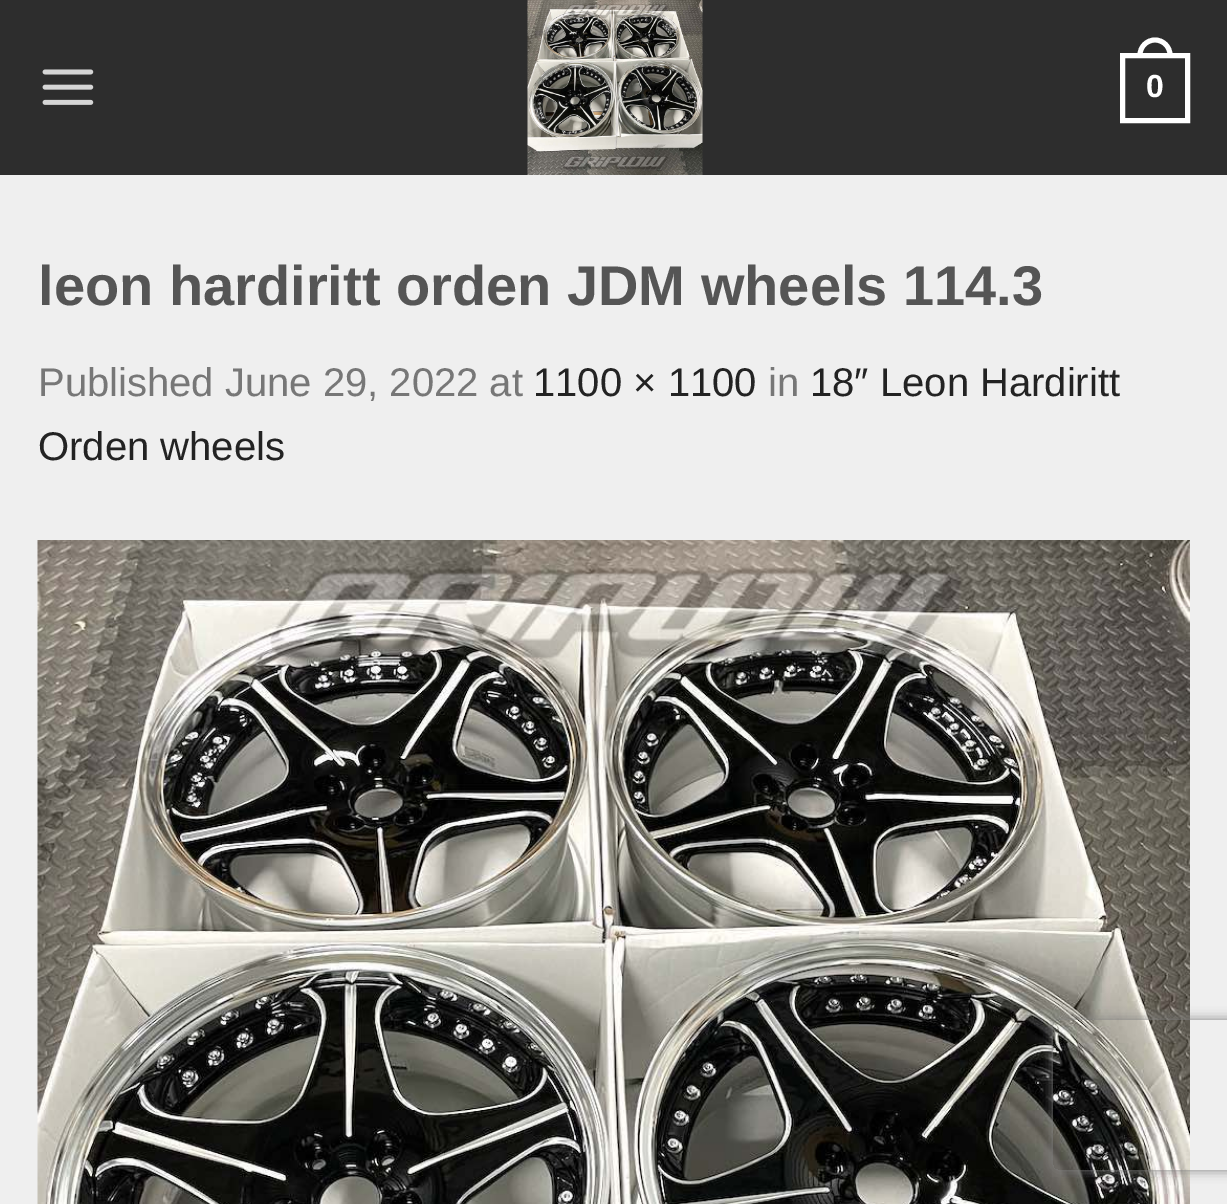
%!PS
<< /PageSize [1227 1204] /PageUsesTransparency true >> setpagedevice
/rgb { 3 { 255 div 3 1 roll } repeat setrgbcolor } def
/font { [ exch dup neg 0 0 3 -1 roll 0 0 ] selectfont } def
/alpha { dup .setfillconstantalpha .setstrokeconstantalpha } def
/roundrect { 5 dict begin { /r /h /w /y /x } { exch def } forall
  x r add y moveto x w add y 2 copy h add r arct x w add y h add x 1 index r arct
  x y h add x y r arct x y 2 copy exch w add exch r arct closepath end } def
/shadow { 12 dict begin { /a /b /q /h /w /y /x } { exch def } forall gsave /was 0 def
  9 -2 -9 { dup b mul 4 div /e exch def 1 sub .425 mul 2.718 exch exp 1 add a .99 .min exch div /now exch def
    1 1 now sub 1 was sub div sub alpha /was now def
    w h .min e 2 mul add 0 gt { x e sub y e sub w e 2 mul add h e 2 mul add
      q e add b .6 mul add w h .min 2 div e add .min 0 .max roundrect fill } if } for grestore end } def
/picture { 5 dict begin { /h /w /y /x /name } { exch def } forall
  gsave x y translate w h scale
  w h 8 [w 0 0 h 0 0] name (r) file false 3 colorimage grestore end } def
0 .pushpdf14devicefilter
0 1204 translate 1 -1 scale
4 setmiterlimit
239 239 239 rgb
0 0 1227 1204 rectfill
45 45 45 rgb
0 0 1227 175 rectfill
(img/1.rgb) 42 69 52 36 picture
(img/2.rgb) 527 0 176 175 picture
255 255 255 rgb
5 setlinewidth
1122.5 55.5 65 65 rectstroke
1155 37.5 moveto 1164.5 37.5 1172.5 45.5 1172.5 55 curveto 1172.5 57.5 lineto 1137.5 57.5 lineto 1137.5 55 lineto 1137.5 45.5 1145.5 37.5 1155 37.5 curveto closepath 1155 42.5 moveto 1162 42.5 1167.5 48 1167.5 55 curveto 1167.5 57.5 lineto 1142.5 57.5 lineto 1142.5 55 lineto 1142.5 48 1148 42.5 1155 42.5 curveto closepath eofill
(img/3.rgb) 37 540 1153 664 picture
gsave
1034 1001 moveto 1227 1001 lineto 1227 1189 lineto 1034 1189 lineto closepath 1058 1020 moveto 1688 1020 lineto 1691 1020 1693 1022 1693 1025 curveto 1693 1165 lineto 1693 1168 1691 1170 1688 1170 curveto 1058 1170 lineto 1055 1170 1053 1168 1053 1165 curveto 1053 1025 lineto 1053 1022 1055 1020 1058 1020 curveto closepath eoclip newpath
128 128 128 rgb
1053 1020 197 150 5 6 1 shadow
grestore
/LiberationSans-Bold 32 font
1146 97 moveto (0) show
/LiberationSans-Bold 56 font
85 85 85 rgb
38 305 moveto (leon hardiritt orden JDM wheels 114.3) show
/LiberationSans-Regular 40 font
119 119 119 rgb
38 396 moveto (Published June 29, 2022 at) show
35 35 35 rgb
533 396 moveto (1100 × 1100) show
119 119 119 rgb
768 396 moveto (in) show
35 35 35 rgb
810 396 moveto (18″ Leon Hardiritt) show
38 460 moveto (Orden wheels) show
.poppdf14devicefilter showpage
